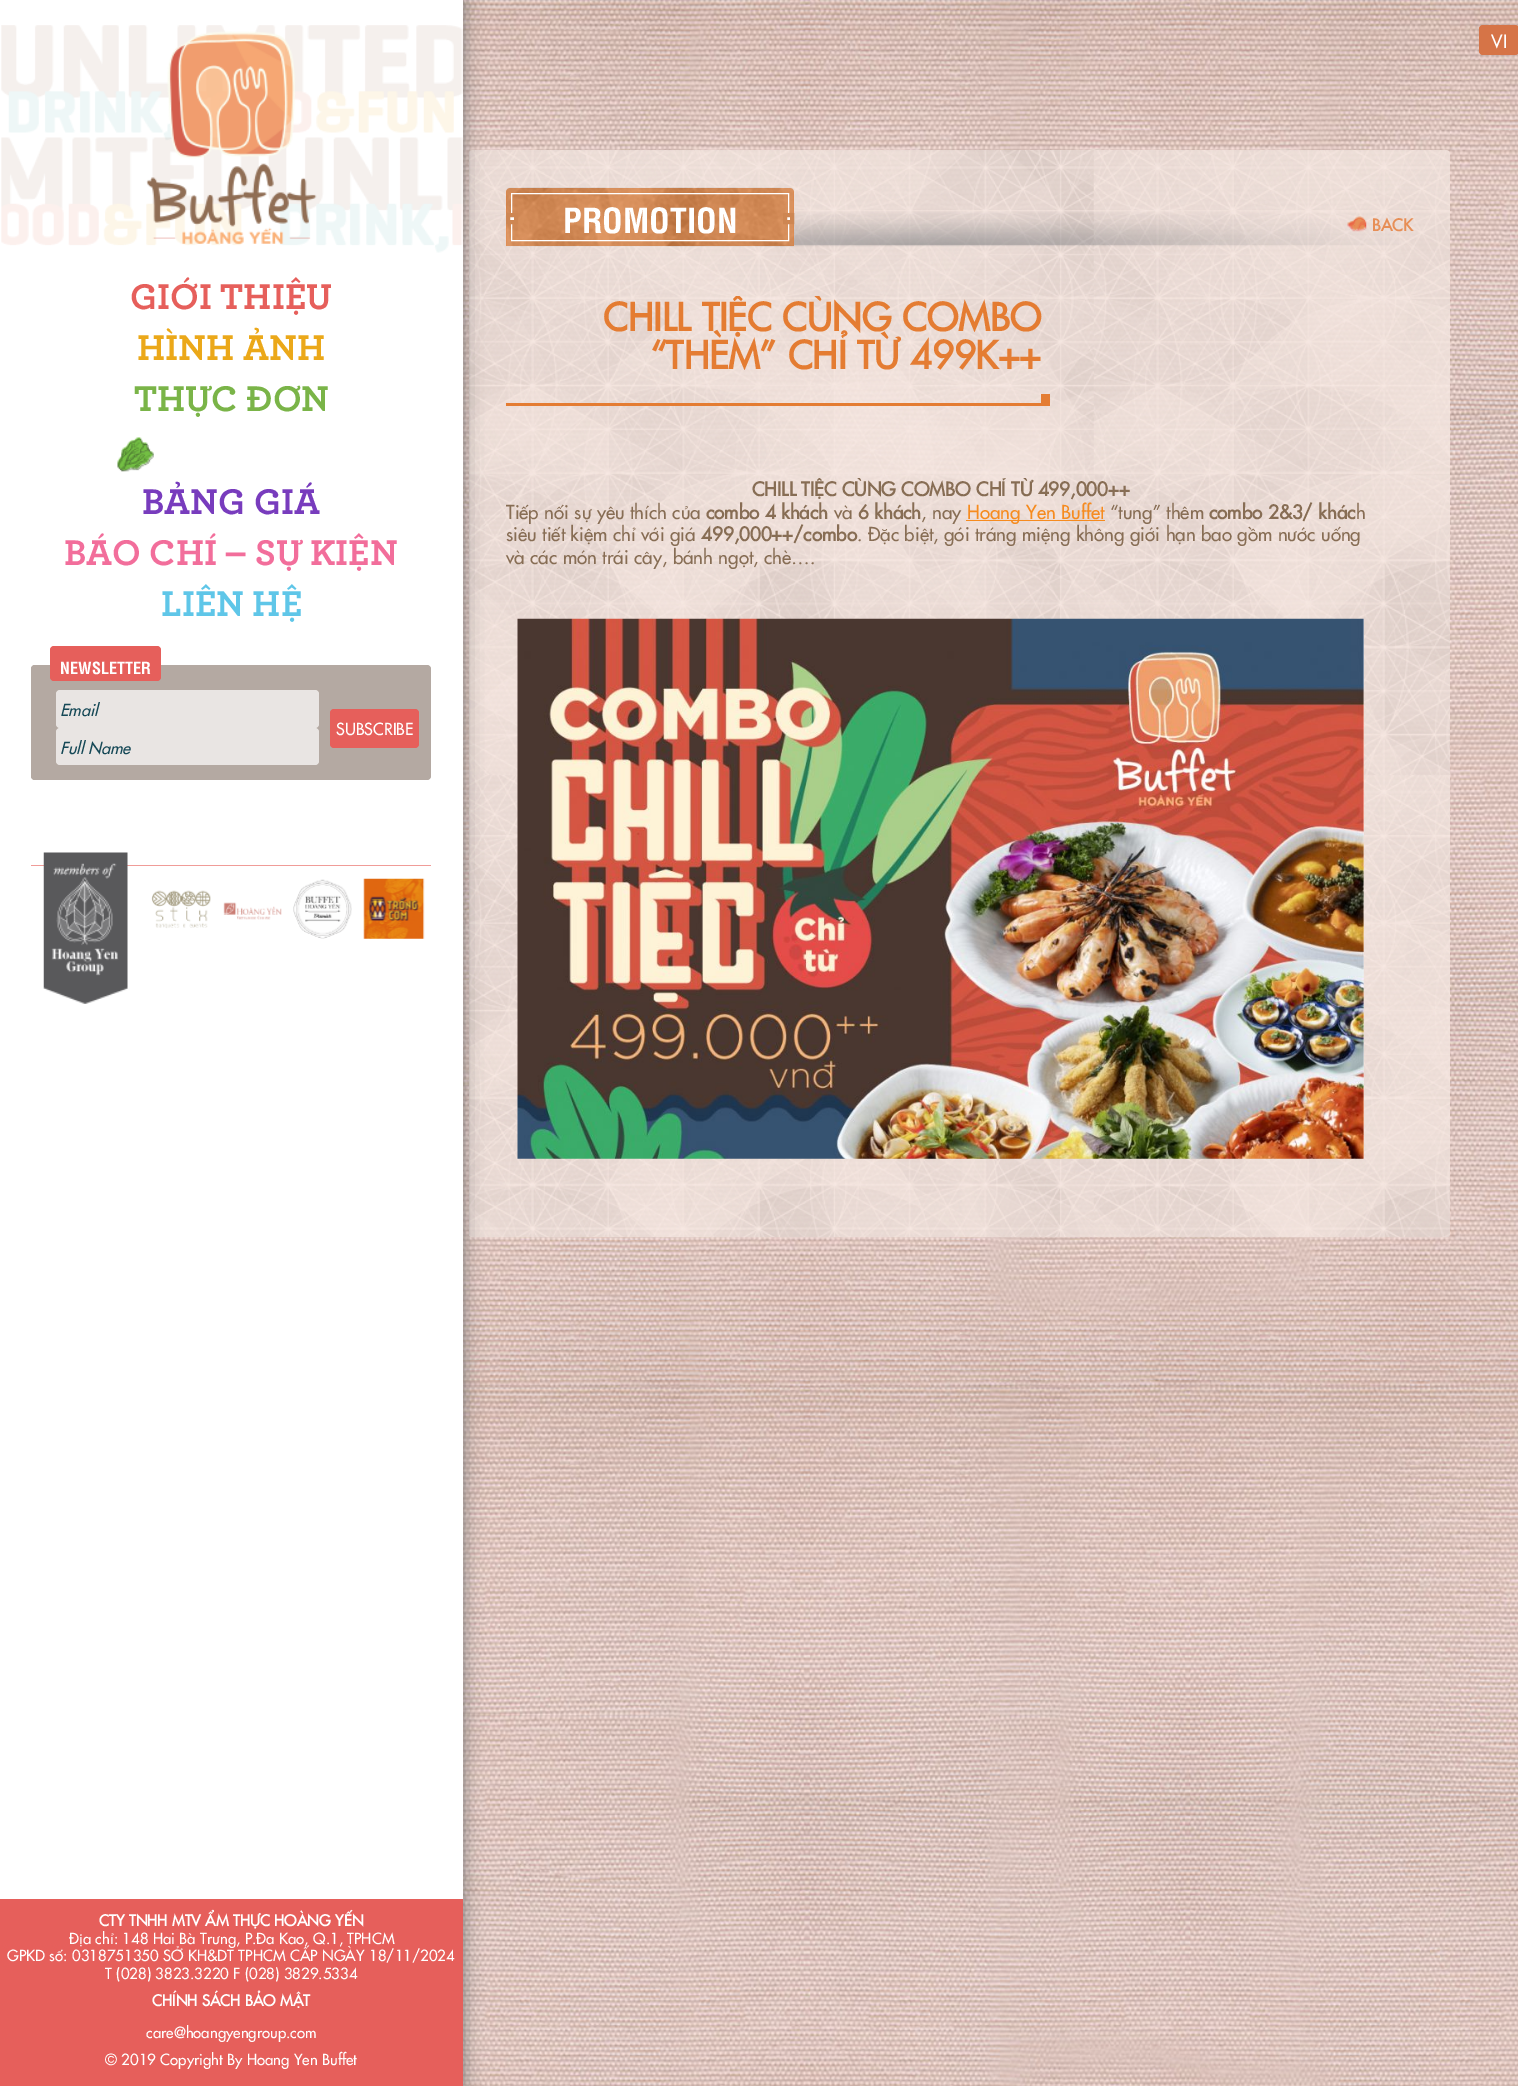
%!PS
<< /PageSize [1518 2086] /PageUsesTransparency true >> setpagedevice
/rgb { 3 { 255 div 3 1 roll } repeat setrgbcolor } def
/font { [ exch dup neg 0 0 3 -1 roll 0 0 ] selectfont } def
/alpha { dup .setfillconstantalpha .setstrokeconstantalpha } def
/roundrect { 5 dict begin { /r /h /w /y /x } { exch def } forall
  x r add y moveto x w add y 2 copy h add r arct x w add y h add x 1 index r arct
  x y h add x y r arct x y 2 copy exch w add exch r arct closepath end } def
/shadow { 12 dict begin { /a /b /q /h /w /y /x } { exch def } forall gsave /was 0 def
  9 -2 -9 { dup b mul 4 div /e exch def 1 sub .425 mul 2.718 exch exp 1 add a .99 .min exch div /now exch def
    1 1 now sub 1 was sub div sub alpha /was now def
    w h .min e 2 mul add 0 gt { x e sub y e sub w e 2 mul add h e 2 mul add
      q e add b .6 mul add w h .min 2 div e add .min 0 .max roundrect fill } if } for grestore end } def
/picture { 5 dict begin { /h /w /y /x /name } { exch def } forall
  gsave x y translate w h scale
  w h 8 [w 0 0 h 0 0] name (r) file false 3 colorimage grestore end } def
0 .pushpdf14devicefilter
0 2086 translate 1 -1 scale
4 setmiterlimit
255 255 255 rgb
0 0 1518 2086 rectfill
(img/1.rgb) 463 0 1055 2086 picture
(img/10.rgb) 469 150 981 1088 picture
122 122 122 rgb
0 0 463 2086 0 9.5 1 shadow
255 255 255 rgb
0 0 463 1899 rectfill
(img/2.rgb) 1 25 462 228 picture
(img/3.rgb) 146 31 171 213 picture
(img/4.rgb) 117 437 37 35 picture
180 169 162 rgb
31 665 400 115 4 roundrect fill
35 665 moveto 306 665 lineto 306 780 lineto 35 780 lineto 33 780 31 778 31 776 curveto 31 669 lineto 31 667 33 665 35 665 curveto closepath fill
230 95 91 rgb
50 646 111 35 4 roundrect fill
233 229 227 rgb
56 690 263 38 4 roundrect fill
56 728 263 37 4 roundrect fill
230 95 91 rgb
330 709 89 39 4 roundrect fill
240 156 152 rgb
31 865 400 1 rectfill
(img/5.rgb) 43 852 85 152 picture
(img/6.rgb) 151 890 60 39 picture
(img/7.rgb) 223 902 59 18 picture
(img/8.rgb) 293 879 59 60 picture
(img/9.rgb) 363 878 62 61 picture
230 95 91 rgb
0 1899 463 187 rectfill
214 116 71 rgb
1479 25 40 30 4 roundrect fill
(img/11.rgb) 730 211 669 36 picture
228 124 50 rgb
510 188 moveto 790 188 lineto 792 188 794 190 794 192 curveto 794 246 lineto 506 246 lineto 506 192 lineto 506 190 508 188 510 188 curveto closepath fill
(img/12.rgb) 506 187 288 60 picture
255 255 255 rgb
511.5 193.5 277 47 rectstroke
508 215 moveto 516 215 lineto 516 222 lineto 508 222 lineto closepath gsave fill grestore
206 134 82 rgb
4 setlinewidth
stroke
255 255 255 rgb
785 215 moveto 792 215 lineto 792 222 lineto 785 222 lineto closepath gsave fill grestore
206 134 82 rgb
stroke
(img/13.rgb) 1347 216 20 16 picture
[
  [506 403 544 3 228 124 50]
  [1041 394 9 9 228 124 50]
  [966 520 139 1 246 139 31]
] { aload pop rgb rectfill } forall
(img/14.rgb) 517 618 847 541 picture
/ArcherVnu-Bold 37.5 font
230 95 91 rgb
130 309 moveto (GIỚI THIỆU) show
235 168 25 rgb
137 360 moveto (HÌNH ẢNH) show
122 180 72 rgb
134 411 moveto (THỰC ĐƠN) show
120 60 189 rgb
142 514 moveto (BẢNG GIÁ) show
242 110 155 rgb
64 565 moveto (BÁO CHÍ – SỰ KIỆN) show
95 198 232 rgb
161 616 moveto (LIÊN HỆ) show
/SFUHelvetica-Bold 16.25 font
255 255 255 rgb
60 674 moveto (NEWSLETTER) show
/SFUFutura-Italic 16.25 font
21 72 86 rgb
60 716 moveto (Email) show
60 754 moveto (Full Name) show
/SFUFutura-Regular 16.25 font
255 255 255 rgb
336 735 moveto (SUBSCRIBE) show
/SFUFutura-Bold 15 font
99 1926 moveto (CTY TNHH MTV ẨM THỰC HOÀNG YẾN) show
/SFUFutura-Regular 15 font
[
  [(Địa chỉ: 148 Hai Bà Trưng, P.Đa Kao, Q.1, TPHCM) 69 1944]
  [(GPKD số: 0318751350 SỞ KH&DT TPHCM CẤP NGÀY 18/11/2024) 7 1961]
  [(T \(028\) 3823.3220 F \(028\) 3829.5334) 105 1979]
] { aload pop moveto show } forall
/SFUFutura-Bold 15 font
152 2006 moveto (CHÍNH SÁCH BẢO MẬT) show
/SFUFutura-Regular 15 font
146 2038 moveto (care@hoangyengroup.com) show
105 2065 moveto (© 2019 Copyright By Hoang Yen Buffet) show
/SFUFutura-Regular 18 font
1491 48 moveto (VI) show
/SFUHelvetica-Bold 33.75 font
563 233 moveto (PROMOTION) show
/SFUFutura-Bold 16.25 font
231 142 86 rgb
1372 231 moveto (BACK) show
gsave
506 296 544 107 rectclip
/SFUFutura-Bold 37.5 font
228 124 50 rgb
603 331 moveto (CHILL TIỆC CÙNG COMBO) show
grestore
/SFUFutura-Bold 37.5 font
228 124 50 rgb
650 369 moveto (“THÈM” CHỈ TỪ 499K++) show
gsave
506 478 907 681 rectclip
/SFUFutura-Bold 18.75 font
135 109 84 rgb
752 496 moveto (CHILL TIỆC CÙNG COMBO CHỈ TỪ 499,000++) show
grestore
/SFUFutura-Regular 18.75 font
135 109 84 rgb
506 519 moveto (Tiếp nối sự yêu thích của) show
/SFUFutura-Bold 18.75 font
706 519 moveto (combo 4 khách) show
/SFUFutura-Regular 18.75 font
834 519 moveto (và) show
/SFUFutura-Bold 18.75 font
858 519 moveto (6 khách) show
/SFUFutura-Regular 18.75 font
921 519 moveto (, nay) show
246 139 31 rgb
967 519 moveto (Hoang Yen Buffet) show
135 109 84 rgb
1110 519 moveto (“tung” thêm) show
/SFUFutura-Bold 18.75 font
1209 519 moveto (combo 2&3/ khác) show
/SFUFutura-Regular 18.75 font
1356 519 moveto (h) show
506 541 moveto (siêu tiết kiệm chỉ với giá) show
/SFUFutura-Bold 18.75 font
701 541 moveto (499,000++/combo) show
/SFUFutura-Regular 18.75 font
857 541 moveto (. Đặc biệt, gói tráng miệng không giới hạn bao gồm nước uống) show
506 564 moveto (và các món trái cây, bánh ngọt, chè….) show
.poppdf14devicefilter showpage
